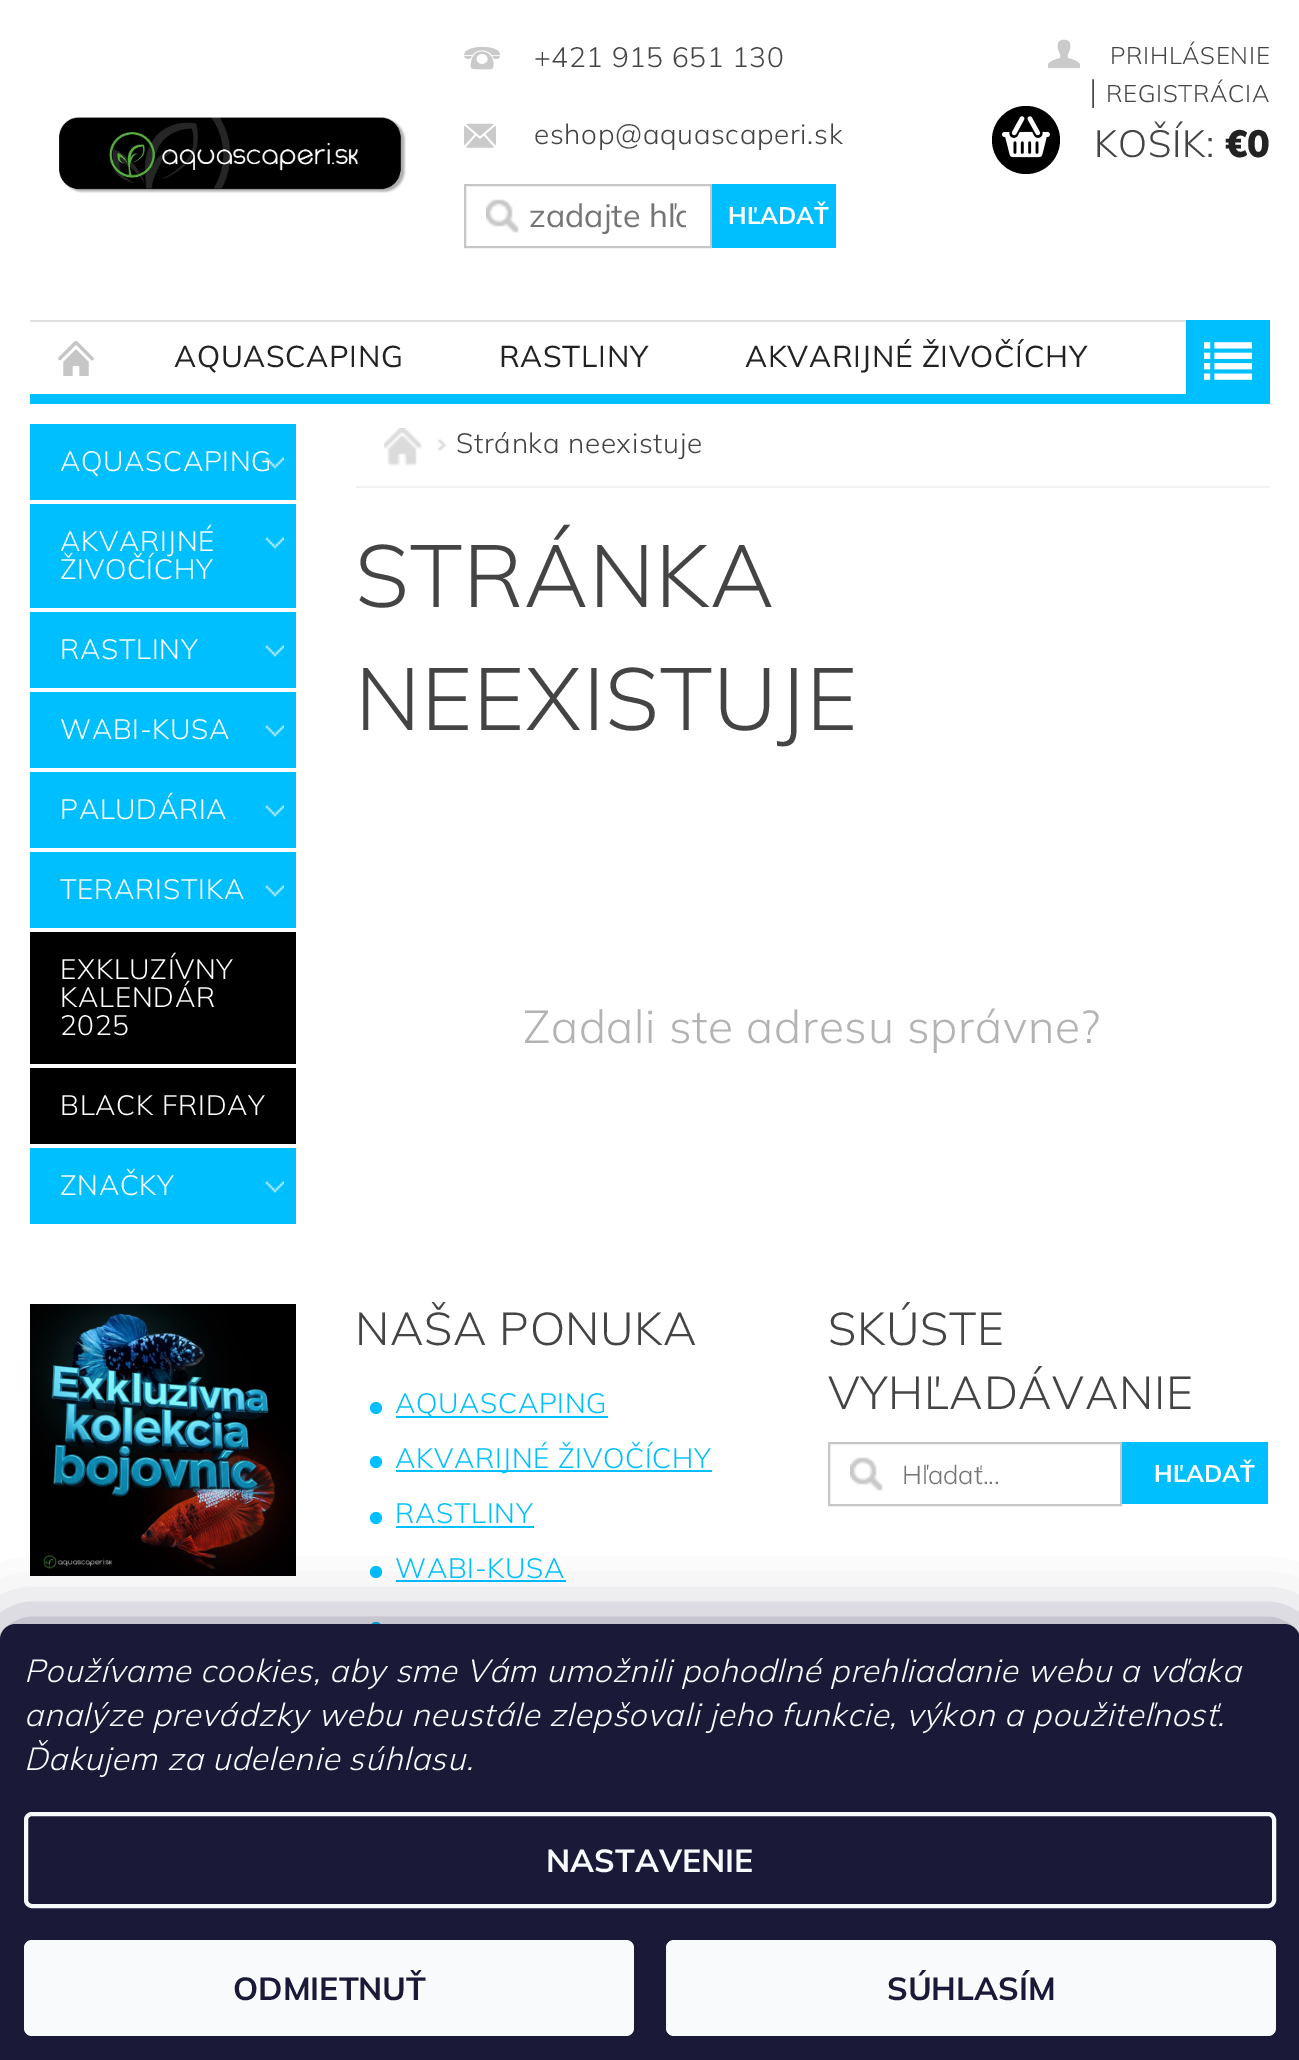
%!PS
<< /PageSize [1299 2060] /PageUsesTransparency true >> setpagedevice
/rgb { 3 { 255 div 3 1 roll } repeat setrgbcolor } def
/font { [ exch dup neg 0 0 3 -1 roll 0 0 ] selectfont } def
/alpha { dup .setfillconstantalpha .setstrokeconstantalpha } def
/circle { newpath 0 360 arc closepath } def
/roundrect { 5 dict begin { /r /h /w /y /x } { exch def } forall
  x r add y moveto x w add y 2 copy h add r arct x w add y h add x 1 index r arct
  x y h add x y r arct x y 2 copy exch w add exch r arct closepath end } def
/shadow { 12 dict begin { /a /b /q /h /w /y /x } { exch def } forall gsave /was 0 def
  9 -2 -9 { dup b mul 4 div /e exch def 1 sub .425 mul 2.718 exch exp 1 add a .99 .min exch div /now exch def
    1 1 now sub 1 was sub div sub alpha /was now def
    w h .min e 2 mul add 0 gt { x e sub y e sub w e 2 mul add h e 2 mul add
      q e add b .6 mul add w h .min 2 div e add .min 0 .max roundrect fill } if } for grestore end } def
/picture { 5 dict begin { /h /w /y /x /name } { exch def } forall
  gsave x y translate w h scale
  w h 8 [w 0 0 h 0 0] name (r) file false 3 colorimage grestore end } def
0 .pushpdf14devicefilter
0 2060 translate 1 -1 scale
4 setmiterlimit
255 255 255 rgb
0 0 1299 2060 rectfill
0 191 255 rgb
30 394 1156 10 rectfill
(img/1.rgb) 59 117 347 76 picture
(img/2.rgb) 464 46 36 24 picture
(img/3.rgb) 464 123 32 25 picture
(img/4.rgb) 486 199 33 34 picture
198 198 198 rgb
2 setlinewidth
465 185 246 62 rectstroke
0 191 255 rgb
712 184 124 64 rectfill
(img/5.rgb) 1048 39 32 30 picture
0 0 0 rgb
1026 140 34 circle fill
(img/6.rgb) 1002 116 48 42 picture
224 224 224 rgb
30 320 1156 2 rectfill
(img/7.rgb) 58 340 36 36 picture
0 191 255 rgb
1186 320 84 84 rectfill
(img/8.rgb) 1204 342 48 38 picture
30 424 266 76 rectfill
(img/9.rgb) 265 457 19 12 picture
30 504 266 104 rectfill
(img/9.rgb) 265 537 19 12 picture
30 612 266 76 rectfill
(img/9.rgb) 265 645 19 12 picture
30 692 266 76 rectfill
(img/9.rgb) 265 725 19 12 picture
30 772 266 76 rectfill
(img/9.rgb) 265 805 19 12 picture
30 852 266 76 rectfill
(img/9.rgb) 265 885 19 12 picture
[
  [30 932 266 132 0 0 0]
  [30 1068 266 76 0 0 0]
  [30 1148 266 76 0 191 255]
] { aload pop rgb rectfill } forall
(img/9.rgb) 265 1181 19 12 picture
(img/10.rgb) 30 1304 266 272 picture
242 242 242 rgb
356 486 914 2 rectfill
(img/11.rgb) 384 428 38 38 picture
(img/12.rgb) 438 439 9 12 picture
0 191 255 rgb
376 1408 6 circle fill
396 1416 212 2 rectfill
376 1462 6 circle fill
396 1470 316 2 rectfill
376 1518 6 circle fill
396 1526 138 2 rectfill
376 1572 6 circle fill
396 1580 170 2 rectfill
376 1628 6 circle fill
(img/4.rgb) 850 1457 33 34 picture
198 198 198 rgb
829 1443 292 62 rectstroke
0 191 255 rgb
1122 1442 146 62 rectfill
27 25 57 rgb
0 1624 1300 436 16 30 0.5 shadow
26 25 55 rgb
16 1624 moveto 1284 1624 lineto 1293 1624 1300 1631 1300 1640 curveto 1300 2060 lineto 0 2060 lineto 0 1640 lineto 0 1631 7 1624 16 1624 curveto closepath fill
248 250 251 rgb
4 setlinewidth
26 1814 1248 92 6 roundrect stroke
24 1940 610 96 8 roundrect fill
666 1940 610 96 8 roundrect fill
/Mulish-Light 28 font
68 68 68 rgb
534 67 moveto 0.65 0 (+421 915 651 130) ashow
534 144 moveto 0.65 0 (eshop@aquascaperi.sk) ashow
gsave
530 196 156 40 rectclip
/Mulish-Regular 32.25 font
117 117 117 rgb
529 227 moveto (zadajte hľa) show
grestore
/Mulish-Bold 24 font
255 255 255 rgb
728 224 moveto (HĽADAŤ) show
/Mulish-Light 24 font
68 68 68 rgb
1110 64 moveto 0.65 0 (PRIHLÁSENIE) ashow
/Mulish-Light 32 font
1089 102 moveto 0.65 0 (|) ashow
/Mulish-Light 24 font
1106 102 moveto 0.65 0 (REGISTRÁCIA) ashow
/Mulish-Light 38 font
1094 157 moveto 0.65 0 (KOŠÍK:) ashow
/Mulish-Black 38 font
34 34 34 rgb
1225 157 moveto -1 0 (€0) ashow
/Mulish-Regular 30 font
174 367 moveto 0.65 0 (AQUASCAPING) ashow
499 367 moveto 0.65 0 (RASTLINY) ashow
745 367 moveto 0.65 0 (AKVARIJNÉ ŽIVOČÍCHY) ashow
/Mulish-Light 28 font
255 255 255 rgb
60 471 moveto 0.65 0 (AQUASCAPING) ashow
60 551 moveto 0.65 0 (AKVARIJNÉ) ashow
60 579 moveto 0.65 0 (ŽIVOČÍCHY) ashow
60 659 moveto 0.65 0 (RASTLINY) ashow
60 739 moveto 0.65 0 (WABI-KUSA) ashow
60 819 moveto 0.65 0 (PALUDÁRIA) ashow
60 899 moveto 0.65 0 (TERARISTIKA) ashow
60 979 moveto 0.65 0 (EXKLUZÍVNY) ashow
60 1007 moveto 0.65 0 (KALENDÁR) ashow
60 1035 moveto 0.65 0 (2025) ashow
60 1115 moveto 0.65 0 (BLACK FRIDAY) ashow
60 1195 moveto 0.65 0 (ZNAČKY) ashow
68 68 68 rgb
456 453 moveto 0.65 0 (Stránka neexistuje) ashow
/Mulish-Light 88 font
355 607 moveto 0.65 0 (STRÁNKA) ashow
355 730 moveto 0.65 0 (NEEXISTUJE) ashow
/Mulish-Light 46 font
179 179 179 rgb
523 1043 moveto 0.65 0 (Zadali ste adresu správne?) ashow
68 68 68 rgb
355 1345 moveto 0.65 0 (NAŠA PONUKA) ashow
/Mulish-Light 28 font
0 191 255 rgb
395 1413 moveto 0.65 0 (AQUASCAPING) ashow
395 1468 moveto 0.65 0 (AKVARIJNÉ ŽIVOČÍCHY) ashow
395 1523 moveto 0.65 0 (RASTLINY) ashow
395 1578 moveto 0.65 0 (WABI-KUSA) ashow
/Mulish-Light 46 font
68 68 68 rgb
828 1345 moveto 0.65 0 (SKÚSTE) ashow
828 1409 moveto 0.65 0 (VYHĽADÁVANIE) ashow
/Mulish-Light 26 font
117 117 117 rgb
902 1484 moveto (Hľadať...) show
/Mulish-Bold 24 font
255 255 255 rgb
1154 1482 moveto (HĽADAŤ) show
/Mulish-LightItalic 32 font
248 250 251 rgb
24 1682 moveto 0.65 0 (Používame cookies, aby sme Vám umožnili pohodlné prehliadanie webu a vďaka) ashow
24 1726 moveto 0.65 0 (analýze prevádzky webu neustále zlepšovali jeho funkcie, výkon a použiteľnosť.) ashow
24 1770 moveto 0.65 0 (Ďakujem za udelenie súhlasu.) ashow
/Mulish-Bold 32 font
546 1872 moveto (NASTAVENIE) show
26 25 55 rgb
233 2000 moveto (ODMIETNUŤ) show
887 2000 moveto (SÚHLASÍM) show
.poppdf14devicefilter showpage
